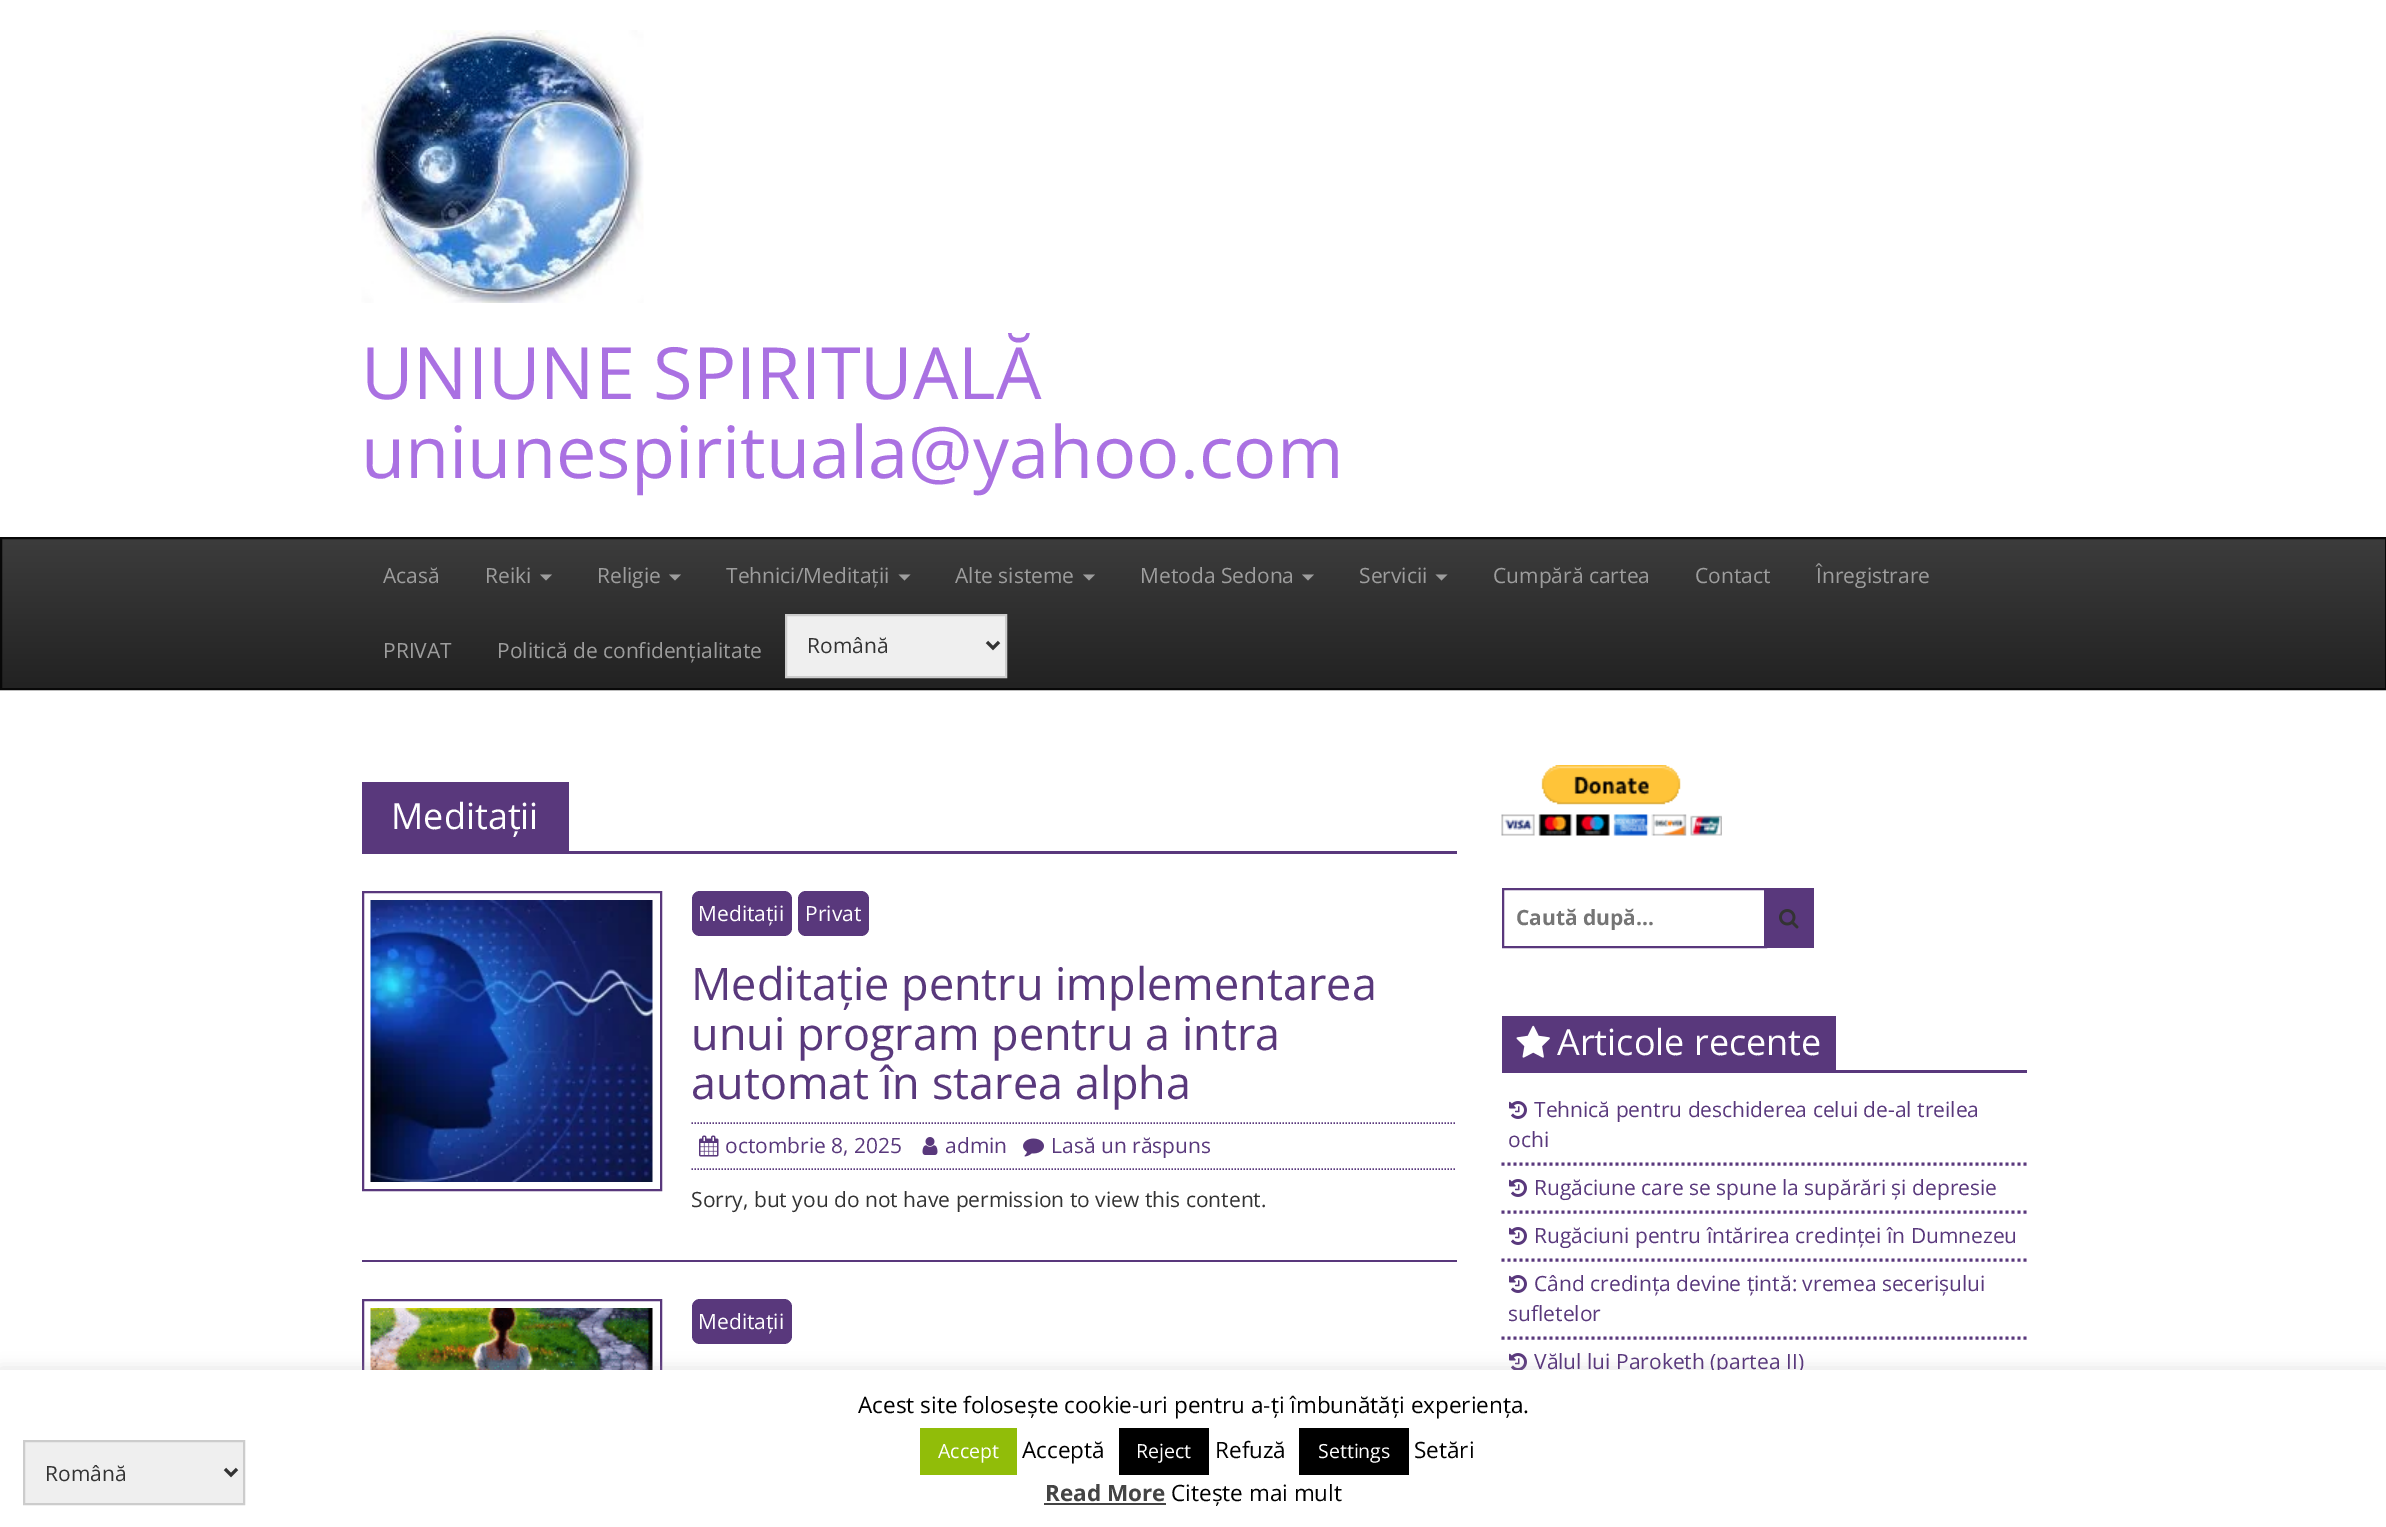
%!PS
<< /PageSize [2386 1527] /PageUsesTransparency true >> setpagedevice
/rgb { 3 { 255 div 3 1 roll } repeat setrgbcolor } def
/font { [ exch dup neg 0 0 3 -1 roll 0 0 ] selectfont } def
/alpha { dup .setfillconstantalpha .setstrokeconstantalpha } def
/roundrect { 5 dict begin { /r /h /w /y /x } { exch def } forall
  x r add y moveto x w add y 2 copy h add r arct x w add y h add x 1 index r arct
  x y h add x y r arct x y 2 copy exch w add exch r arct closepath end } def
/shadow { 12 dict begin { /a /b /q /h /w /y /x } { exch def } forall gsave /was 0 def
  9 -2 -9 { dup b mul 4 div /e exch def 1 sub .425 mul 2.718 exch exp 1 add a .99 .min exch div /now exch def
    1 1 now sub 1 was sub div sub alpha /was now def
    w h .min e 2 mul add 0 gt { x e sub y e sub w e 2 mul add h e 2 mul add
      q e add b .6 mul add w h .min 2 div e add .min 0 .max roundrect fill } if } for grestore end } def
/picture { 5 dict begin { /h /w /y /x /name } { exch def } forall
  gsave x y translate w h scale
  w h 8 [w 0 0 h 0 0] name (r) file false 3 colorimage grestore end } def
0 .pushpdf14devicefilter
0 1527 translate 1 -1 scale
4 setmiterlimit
255 255 255 rgb
0 0 2386 1527 rectfill
(img/1.rgb) 361 30 283 273 picture
gsave 2 539 moveto 2385 539 lineto 2385 688 lineto 2 688 lineto closepath clip newpath
<< /ShadingType 2 /ColorSpace /DeviceRGB /Coords [1193 538 1193 689] /Extend [true true] /Function << /FunctionType 2 /Domain [0 1] /C0 [0.235 0.235 0.235] /C1 [0.133 0.133 0.133] /N 1 >> >> shfill grestore
8 8 8 rgb
2 setlinewidth
1 538 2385 151 rectstroke
157 157 157 rgb
540 574.5 moveto 552 574.5 lineto 546 580.5 lineto closepath fill
669 574.5 moveto 681 574.5 lineto 675 580.5 lineto closepath fill
898.5 574.5 moveto 910.5 574.5 lineto 904.5 580.5 lineto closepath fill
1083 574.5 moveto 1095 574.5 lineto 1089 580.5 lineto closepath fill
1302 574.5 moveto 1314 574.5 lineto 1308 580.5 lineto closepath fill
1435.5 574.5 moveto 1447.5 574.5 lineto 1441.5 580.5 lineto closepath fill
239 239 239 rgb
786 615 moveto 1006 615 lineto 1006 677 lineto 786 677 lineto closepath gsave fill grestore
204 204 204 rgb
stroke
51 51 51 rgb
3 setlinewidth
987 642 moveto 993 648 lineto 999 642 lineto stroke
[
  [362 851 1095 3 89 56 124]
  [362 782 207 69 89 56 124]
  [362 1260 1095 2 89 56 124]
] { aload pop rgb rectfill } forall
2 setlinewidth
363 892 298 298 rectstroke
(img/2.rgb) 370 900 283 282 picture
692 891 100 45 8 roundrect fill
798 891 71 45 8 roundrect fill
1.5 setlinewidth
[1.5 1.5] 0 setdash
691.5 1123 moveto 1456.5 1123 lineto stroke
691.5 1169 moveto 1456.5 1169 lineto stroke
(img/3.rgb) 699 1135 20 22 picture
(img/4.rgb) 922 1137 16 18 picture
(img/5.rgb) 1023 1138 21 19 picture
2 setlinewidth
[] 0 setdash
363 1300 298 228 rectstroke
(img/6.rgb) 370 1308 283 62 picture
692 1299 100 45 8 roundrect fill
(img/7.rgb) 1501 765 221 71 picture
1503 889 263 58 rectstroke
1764 888 50 60 rectfill
(img/8.rgb) 1779 909 20 20 picture
1502 1070 525 3 rectfill
1502 1016 334 54 rectfill
(img/9.rgb) 1516 1025 34 33 picture
3 setlinewidth
[3 3] 0 setdash
1501.5 1164 moveto 2026.5 1164 lineto stroke
(img/10.rgb) 1509 1101 18 18 picture
1501.5 1212 moveto 2026.5 1212 lineto stroke
(img/10.rgb) 1509 1179 18 18 picture
1501.5 1260 moveto 2026.5 1260 lineto stroke
(img/10.rgb) 1509 1227 18 18 picture
1501.5 1338 moveto 2026.5 1338 lineto stroke
(img/10.rgb) 1509 1275 18 18 picture
(img/11.rgb) 1509 1353 18 17 picture
172 171 171 rgb
0 1368 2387 158 0 7.5 0.3 shadow
/OpenSans-Regular 72 font
170 113 226 rgb
361 399 moveto (UNIUNE SPIRITUALĂ) show
361 478 moveto (uniunespirituala@yahoo.com) show
/OpenSans-Regular 21 font
157 157 157 rgb
[
  [(Acasă) 383 583]
  [(Reiki) 485 583]
  [(Religie) 597 583]
  [(Tehnici/Meditații) 726 583]
  [(Alte sisteme) 955 583]
  [(Metoda Sedona) 1140 583]
  [(Servicii) 1359 583]
  [(Cumpără cartea) 1493 583]
  [(Contact) 1695 583]
  [(Înregistrare) 1816 583]
  [(PRIVAT) 383 658]
  [(Politică de confidențialitate) 497 658]
] { aload pop moveto show } forall
51 51 51 rgb
807 653 moveto (Română) show
/OpenSans-Regular 36 font
255 255 255 rgb
391 829 moveto (Meditații) show
/OpenSans-Regular 21 font
698 921 moveto (Meditații) show
805 921 moveto (Privat) show
/OpenSans-Regular 45 font
89 56 124 rgb
[
  [(Meditație pentru implementarea) 691 1000]
  [(unui program pentru a intra) 691 1050]
  [(automat în starea alpha) 691 1099]
] { aload pop moveto show } forall
/OpenSans-Regular 21 font
[
  [(octombrie 8, 2025) 725 1153]
  [(admin) 945 1153]
  [(Lasă un răspuns) 1051 1153]
] { aload pop moveto show } forall
51 51 51 rgb
691 1207 moveto (Sorry, but you do not have permission to view this content.) show
255 255 255 rgb
698 1329 moveto (Meditații) show
/OpenSans-Bold 21 font
117 117 117 rgb
1516 925 moveto (Caută după…) show
/OpenSans-Regular 36 font
255 255 255 rgb
1557 1055 moveto (Articole recente) show
/OpenSans-Regular 21 font
89 56 124 rgb
[
  [(Tehnică pentru deschiderea celui de-al treilea) 1534 1117]
  [(ochi) 1508 1147]
  [(Rugăciune care se spune la supărări și depresie) 1534 1195]
  [(Rugăciuni pentru întărirea credinței în Dumnezeu) 1534 1243]
  [(Când credința devine țintă: vremea secerișului) 1534 1291]
  [(sufletelor) 1508 1321]
  [(Vălul lui Paroketh \(partea II\)) 1534 1369]
] { aload pop moveto show } forall
255 255 255 rgb
0 1370 2386 157 rectfill
239 239 239 rgb
24 1441 moveto 244 1441 lineto 244 1504 lineto 24 1504 lineto closepath gsave fill grestore
204 204 204 rgb
2 setlinewidth
[] 0 setdash
stroke
51 51 51 rgb
45 1481 moveto (Română) show
3 setlinewidth
225 1469 moveto 231 1475 lineto 237 1469 lineto stroke
/OpenSans-Regular 22.5 font
0 0 0 rgb
858 1413 moveto (Acest site folosește cookie-uri pentru a-ți îmbunătăți experiența.) show
145 189 9 rgb
920 1428 97 47 rectfill
/OpenSans-Regular 19.5 font
255 255 255 rgb
938 1458 moveto (Accept) show
/OpenSans-Regular 22.5 font
0 0 0 rgb
1022 1458 moveto (Acceptă) show
1119 1428 90 47 rectfill
/OpenSans-Regular 19.5 font
255 255 255 rgb
1136 1458 moveto (Reject) show
/OpenSans-Regular 22.5 font
0 0 0 rgb
1215 1458 moveto (Refuză) show
1299 1428 110 47 rectfill
/OpenSans-Regular 19.5 font
255 255 255 rgb
1318 1458 moveto (Settings) show
/OpenSans-Regular 22.5 font
0 0 0 rgb
1414 1458 moveto (Setări) show
/OpenSans-Bold 22.5 font
68 68 68 rgb
1045 1501 moveto (Read More) show
1044 1503 122 2 rectfill
/OpenSans-Regular 22.5 font
0 0 0 rgb
1171 1501 moveto (Citește mai mult) show
.poppdf14devicefilter showpage
